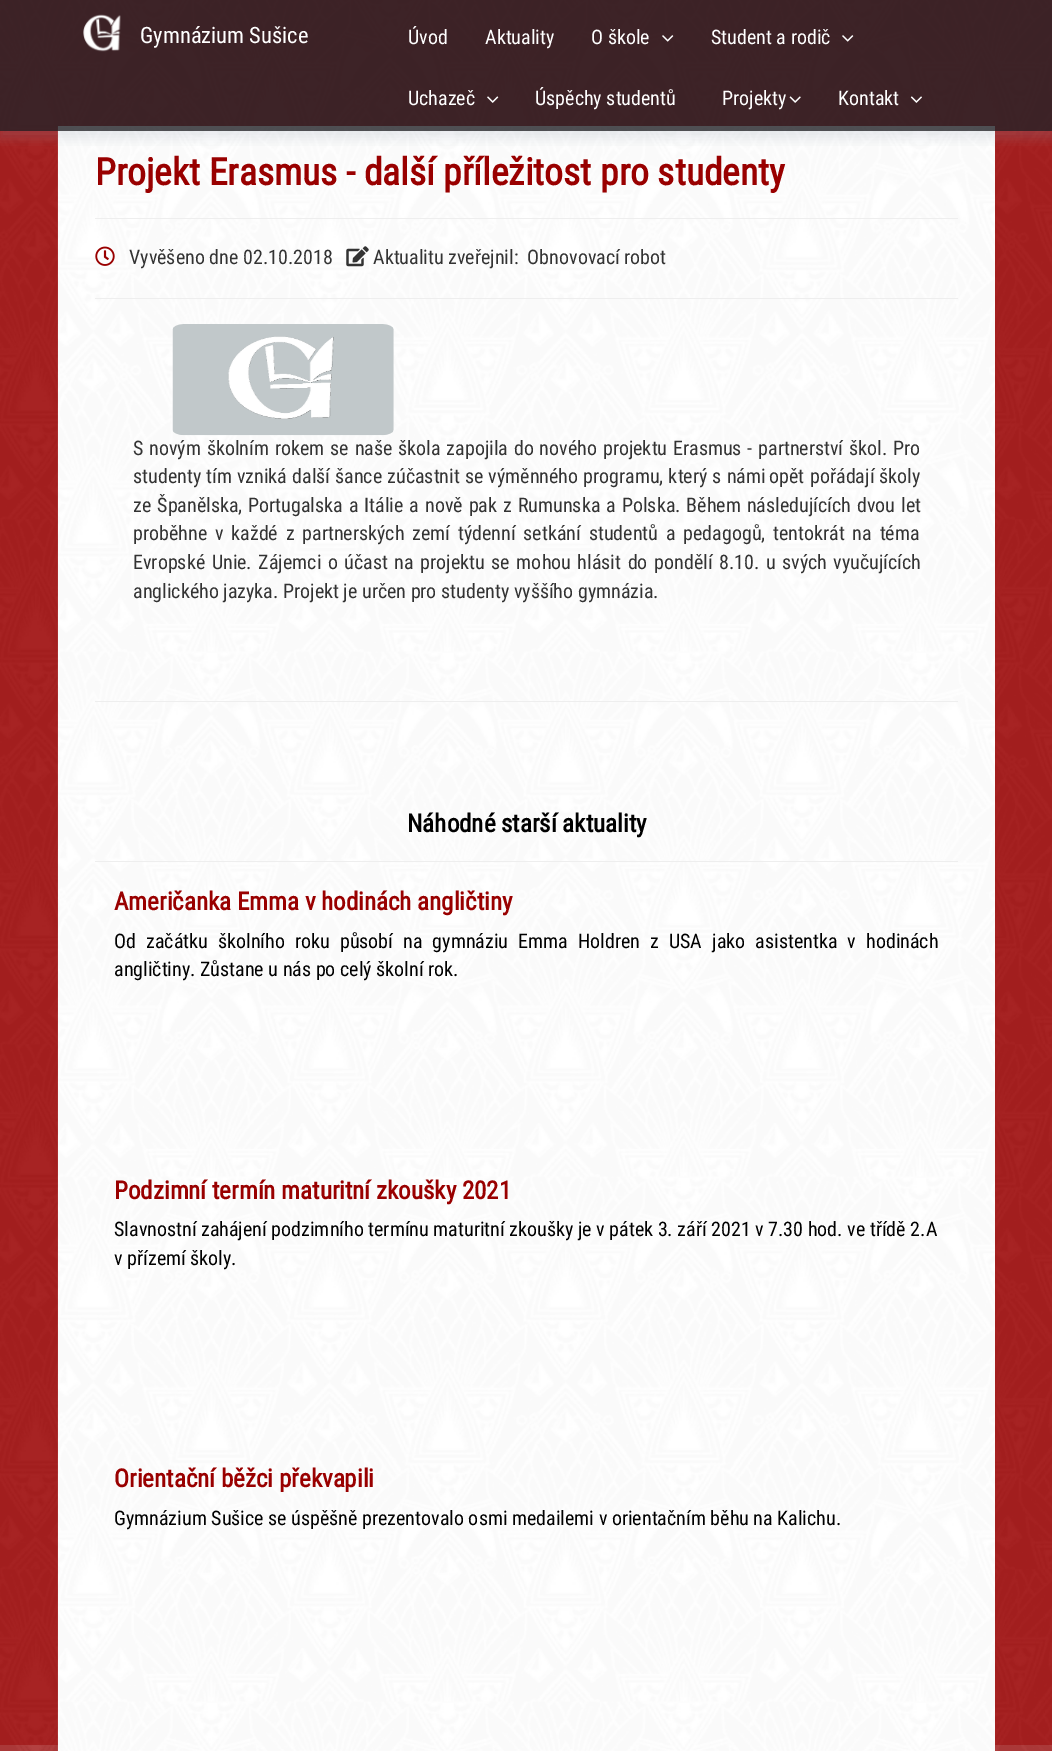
%!PS
<< /PageSize [1052 1751] /PageUsesTransparency true >> setpagedevice
/rgb { 3 { 255 div 3 1 roll } repeat setrgbcolor } def
/font { [ exch dup neg 0 0 3 -1 roll 0 0 ] selectfont } def
/alpha { dup .setfillconstantalpha .setstrokeconstantalpha } def
/roundrect { 5 dict begin { /r /h /w /y /x } { exch def } forall
  x r add y moveto x w add y 2 copy h add r arct x w add y h add x 1 index r arct
  x y h add x y r arct x y 2 copy exch w add exch r arct closepath end } def
/shadow { 12 dict begin { /a /b /q /h /w /y /x } { exch def } forall gsave /was 0 def
  9 -2 -9 { dup b mul 4 div /e exch def 1 sub .425 mul 2.718 exch exp 1 add a .99 .min exch div /now exch def
    1 1 now sub 1 was sub div sub alpha /was now def
    w h .min e 2 mul add 0 gt { x e sub y e sub w e 2 mul add h e 2 mul add
      q e add b .6 mul add w h .min 2 div e add .min 0 .max roundrect fill } if } for grestore end } def
/picture { 5 dict begin { /h /w /y /x /name } { exch def } forall
  gsave x y translate w h scale
  w h 8 [w 0 0 h 0 0] name (r) file false 3 colorimage grestore end } def
0 .pushpdf14devicefilter
0 1751 translate 1 -1 scale
4 setmiterlimit
153 0 0 rgb
0 0 1052 1751 rectfill
(img/1.rgb) 0 1745 1052 6 picture
(img/2.rgb) 0 0 1052 1751 picture
255 255 255 rgb
58 126 937 1625 rectfill
(img/9.rgb) 57 126 938 1625 picture
gsave
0 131 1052 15 rectclip
144 161 180 rgb
-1 5 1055 134 0 5.5 0.2 shadow
grestore
0.8 alpha
35 35 40 rgb
0 0 1052 131 rectfill
1 alpha
(img/3.rgb) 83 14 38 38 picture
(img/4.rgb) 662 35 12 7 picture
(img/5.rgb) 842 35 12 7 picture
(img/6.rgb) 487 96 12 7 picture
(img/7.rgb) 789 96 12 7 picture
(img/8.rgb) 910 96 12 7 picture
238 238 238 rgb
95 218 863 1 rectfill
(img/10.rgb) 95 246 20 20 picture
(img/11.rgb) 346 246 23 21 picture
95 298 863 1 rectfill
(img/12.rgb) 172 324 222 112 picture
95 701 863 1 rectfill
95 861 863 1 rectfill
/RobotoCondensed-Regular 22.5 font
255 255 255 rgb
140 43 moveto (Gymnázium Sušice) show
/RobotoCondensed-Regular 20 font
[
  [(Úvod) 408 44]
  [(Aktuality) 485 44]
  [(O škole) 591 44]
  [(Student a rodič) 711 44]
  [(Uchazeč) 408 105]
  [(Úspěchy studentů) 535 105]
  [(Projekty) 722 105]
  [(Kontakt) 838 105]
] { aload pop moveto show } forall
/RobotoCondensed-Bold 37.5 font
153 0 0 rgb
95 185 moveto (Projekt Erasmus - další příležitost pro studenty) show
/RobotoCondensed-Regular 20 font
51 51 51 rgb
129 264 moveto (Vyvěšeno dne 02.10.2018) show
373 264 moveto (Aktualitu zveřejnil:  Obnovovací robot) show
133 455 moveto 1.25 0 32 (S novým školním rokem se naše škola zapojila do nového projektu Erasmus - partnerství škol. Pro) widthshow
133 483 moveto 0.5 0 32 (studenty tím vzniká další šance zúčastnit se výměnného programu, který s námi) widthshow
769 483 moveto (opět) show
810 483 moveto (pořádají školy) show
133 512 moveto 1.4 0 32 (ze Španělska, Portugalska a Itálie a nově pak z Rumunska a Polska. Během následujících dvou let) widthshow
133 540 moveto 3.25 0 32 (proběhne v každé z partnerských zemí týdenní setkání studentů a pedagogů, tentokrát na téma) widthshow
133 569 moveto 2 0 32 (Evropské Unie. Zájemci o účast na projektu se mohou hlásit do pondělí 8.10. u svých vyučujících) widthshow
133 598 moveto (anglického jazyka. Projekt je určen pro studenty vyššího gymnázia.) show
/RobotoCondensed-Bold 25 font
0 0 0 rgb
407 832 moveto (Náhodné starší aktuality) show
153 0 0 rgb
114 910 moveto (Američanka Emma v hodinách angličtiny) show
/RobotoCondensed-Regular 20 font
0 0 0 rgb
114 948 moveto 5.5 0 32 (Od začátku školního roku působí na gymnáziu Emma Holdren z USA jako asistentka v hodinách) widthshow
114 976 moveto (angličtiny. Zůstane u nás po celý školní rok.) show
/RobotoCondensed-Bold 25 font
153 0 0 rgb
114 1199 moveto (Podzimní termín maturitní zkoušky 2021) show
/RobotoCondensed-Regular 20 font
0 0 0 rgb
114 1236 moveto (Slavnostní zahájení podzimního termínu maturitní zkoušky je v pátek 3. září 2021 v 7.30 hod. ve třídě 2.A) show
114 1265 moveto (v přízemí školy.) show
/RobotoCondensed-Bold 25 font
153 0 0 rgb
114 1487 moveto (Orientační běžci překvapili) show
/RobotoCondensed-Regular 20 font
0 0 0 rgb
114 1525 moveto (Gymnázium Sušice se úspěšně prezentovalo osmi medailemi v orientačním běhu na Kalichu.) show
.poppdf14devicefilter showpage
